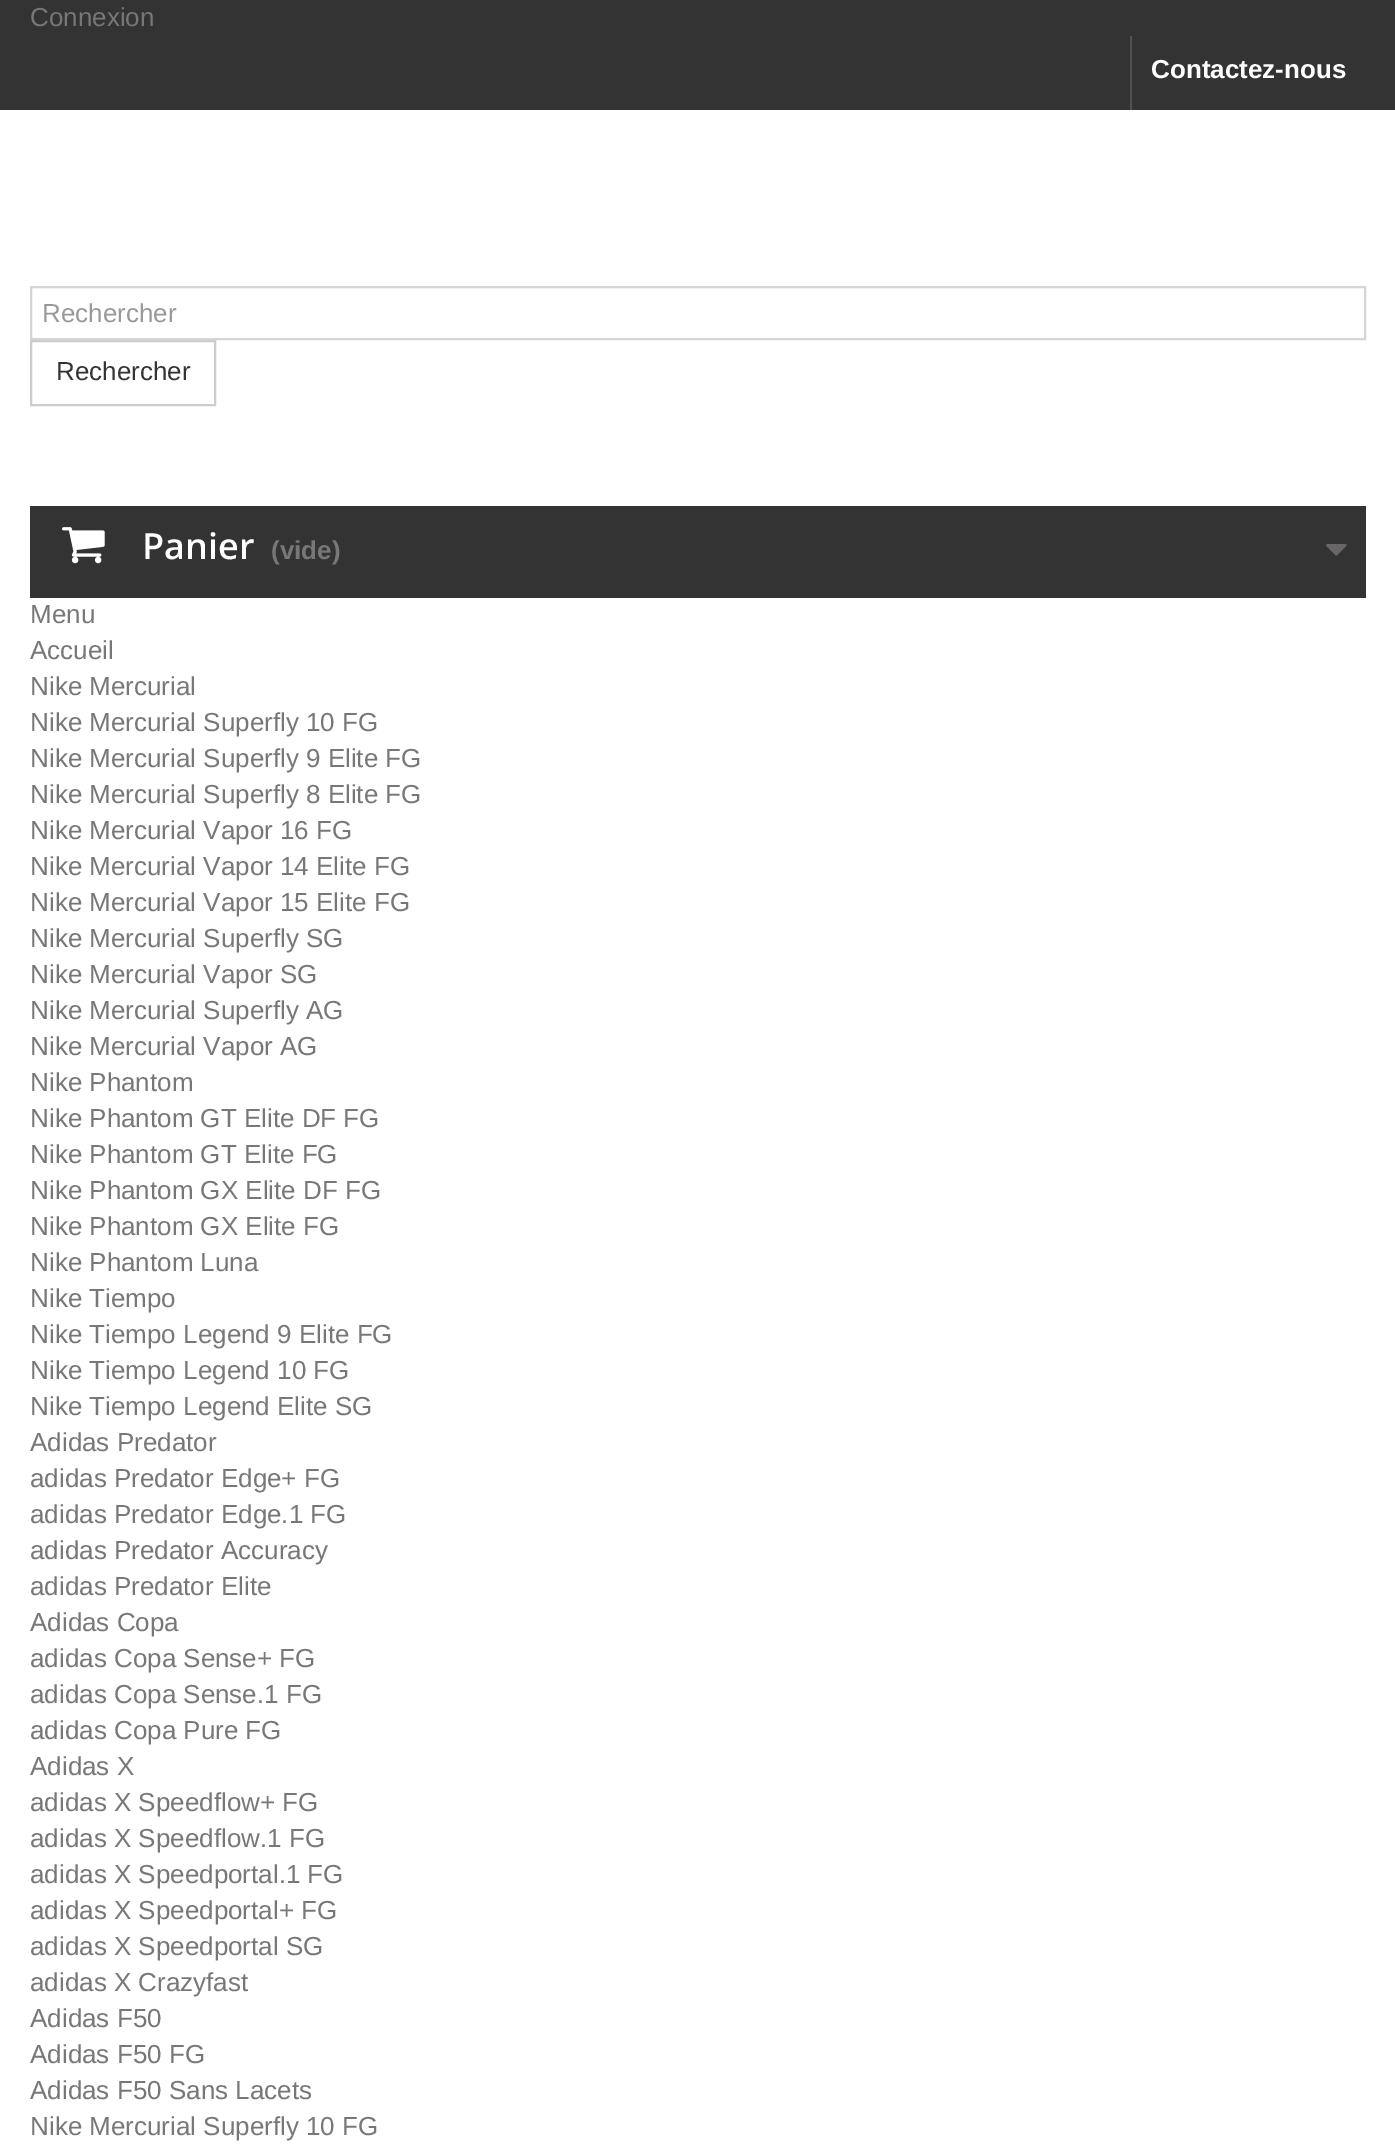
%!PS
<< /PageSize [1395 2150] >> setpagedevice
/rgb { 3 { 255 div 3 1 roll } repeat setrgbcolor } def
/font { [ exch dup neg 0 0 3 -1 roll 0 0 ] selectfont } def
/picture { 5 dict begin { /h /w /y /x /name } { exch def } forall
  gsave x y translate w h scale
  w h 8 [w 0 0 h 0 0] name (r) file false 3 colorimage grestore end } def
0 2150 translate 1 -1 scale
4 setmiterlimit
255 255 255 rgb
0 0 1395 2150 rectfill
51 51 51 rgb
0 0 1395 110 rectfill
81 81 81 rgb
1130 36 2 74 rectfill
214 212 212 rgb
2 setlinewidth
31 287 1334 52 rectstroke
204 204 204 rgb
31 341 184 64 rectstroke
51 51 51 rgb
30 506 1336 92 rectfill
(img/1.rgb) 62 527 43 37 picture
(img/2.rgb) 1326 544 21 12 picture
/LiberationSans-Regular 26 font
119 119 119 rgb
30 26 moveto (Connexion) show
/LiberationSans-Bold 26 font
255 255 255 rgb
1151 78 moveto (Contactez-nous) show
/LiberationSans-Regular 26 font
153 153 153 rgb
42 322 moveto (Rechercher) show
51 51 51 rgb
56 380 moveto (Rechercher) show
/OpenSans-SemiBold 36 font
255 255 255 rgb
142 559 moveto (Panier) show
/LiberationSans-Bold 26 font
119 119 119 rgb
271 559 moveto (\(vide\)) show
/LiberationSans-Regular 26 font
[
  [(Menu) 30 623]
  [(Accueil) 30 659]
  [(Nike Mercurial) 30 695]
  [(Nike Mercurial Superfly 10 FG) 30 731]
  [(Nike Mercurial Superfly 9 Elite FG) 30 767]
  [(Nike Mercurial Superfly 8 Elite FG) 30 803]
  [(Nike Mercurial Vapor 16 FG) 30 839]
  [(Nike Mercurial Vapor 14 Elite FG) 30 875]
  [(Nike Mercurial Vapor 15 Elite FG) 30 911]
  [(Nike Mercurial Superfly SG) 30 947]
  [(Nike Mercurial Vapor SG) 30 983]
  [(Nike Mercurial Superfly AG) 30 1019]
  [(Nike Mercurial Vapor AG) 30 1055]
  [(Nike Phantom) 30 1091]
  [(Nike Phantom GT Elite DF FG) 30 1127]
  [(Nike Phantom GT Elite FG) 30 1163]
  [(Nike Phantom GX Elite DF FG) 30 1199]
  [(Nike Phantom GX Elite FG) 30 1235]
  [(Nike Phantom Luna) 30 1271]
  [(Nike Tiempo) 30 1307]
  [(Nike Tiempo Legend 9 Elite FG) 30 1343]
  [(Nike Tiempo Legend 10 FG) 30 1379]
  [(Nike Tiempo Legend Elite SG) 30 1415]
  [(Adidas Predator) 30 1451]
  [(adidas Predator Edge+ FG) 30 1487]
  [(adidas Predator Edge.1 FG) 30 1523]
  [(adidas Predator Accuracy) 30 1559]
  [(adidas Predator Elite) 30 1595]
  [(Adidas Copa) 30 1631]
  [(adidas Copa Sense+ FG) 30 1667]
  [(adidas Copa Sense.1 FG) 30 1703]
  [(adidas Copa Pure FG) 30 1739]
  [(Adidas X) 30 1775]
  [(adidas X Speedflow+ FG) 30 1811]
  [(adidas X Speedflow.1 FG) 30 1847]
  [(adidas X Speedportal.1 FG) 30 1883]
  [(adidas X Speedportal+ FG) 30 1919]
  [(adidas X Speedportal SG) 30 1955]
  [(adidas X Crazyfast) 30 1991]
  [(Adidas F50) 30 2027]
  [(Adidas F50 FG) 30 2063]
  [(Adidas F50 Sans Lacets) 30 2099]
  [(Nike Mercurial Superfly 10 FG) 30 2135]
] { aload pop moveto show } forall
showpage
